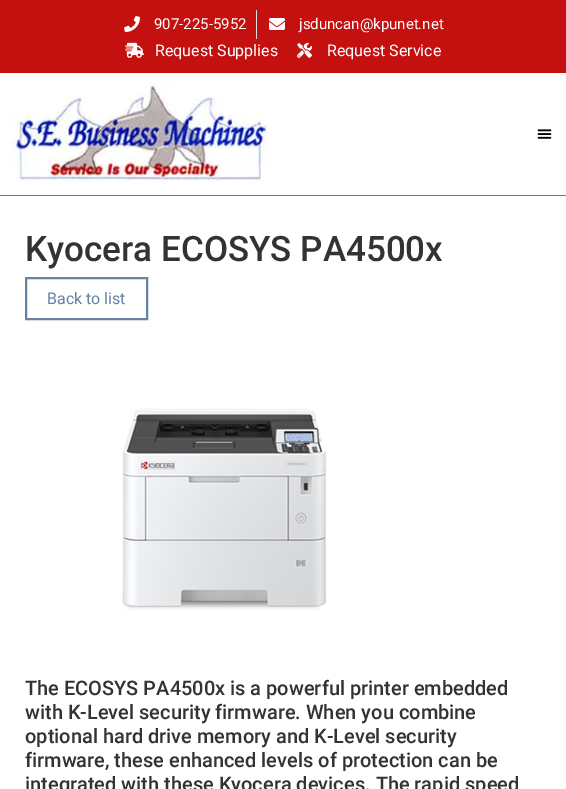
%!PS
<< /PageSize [566 789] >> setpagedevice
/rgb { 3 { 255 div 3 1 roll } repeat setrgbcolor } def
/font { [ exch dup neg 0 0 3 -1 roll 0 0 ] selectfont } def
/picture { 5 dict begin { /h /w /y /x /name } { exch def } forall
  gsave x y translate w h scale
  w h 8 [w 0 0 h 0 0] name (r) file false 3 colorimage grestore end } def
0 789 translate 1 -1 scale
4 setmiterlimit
255 255 255 rgb
0 0 566 789 rectfill
197 16 16 rgb
0 0 566 73 rectfill
(img/1.rgb) 124 16 16 16 picture
221 221 221 rgb
256 10 1 29 rectfill
(img/2.rgb) 269 18 16 12 picture
(img/3.rgb) 125 42 19 16 picture
(img/4.rgb) 297 42 15 16 picture
117 117 117 rgb
0 195 566 1 rectfill
(img/5.rgb) 10 83 259 99 picture
(img/6.rgb) 537 129 15 10 picture
100 131 166 rgb
2 setlinewidth
26 278 121 41 rectstroke
(img/7.rgb) 122 408 205 215 picture
/Roboto-Regular 15 font
255 255 255 rgb
154 29 moveto (907-225-5952) show
299 29 moveto (jsduncan@kpunet.net) show
/Roboto-Regular 16 font
155 56 moveto (Request Supplies) show
327 56 moveto (Request Service) show
/Roboto-Medium 35 font
51 51 51 rgb
25 261 moveto (Kyocera ECOSYS PA4500x) show
/Roboto-Regular 16 font
100 131 166 rgb
47 304 moveto (Back to list) show
/Roboto-Medium 20 font
51 51 51 rgb
[
  [(The ECOSYS PA4500x is a powerful printer embedded) 25 695]
  [(with K-Level security firmware. When you combine) 25 719]
  [(optional hard drive memory and K-Level security) 25 743]
  [(firmware, these enhanced levels of protection can be) 25 767]
  [(integrated with these Kyocera devices. The rapid speed) 25 791]
] { aload pop moveto show } forall
showpage
